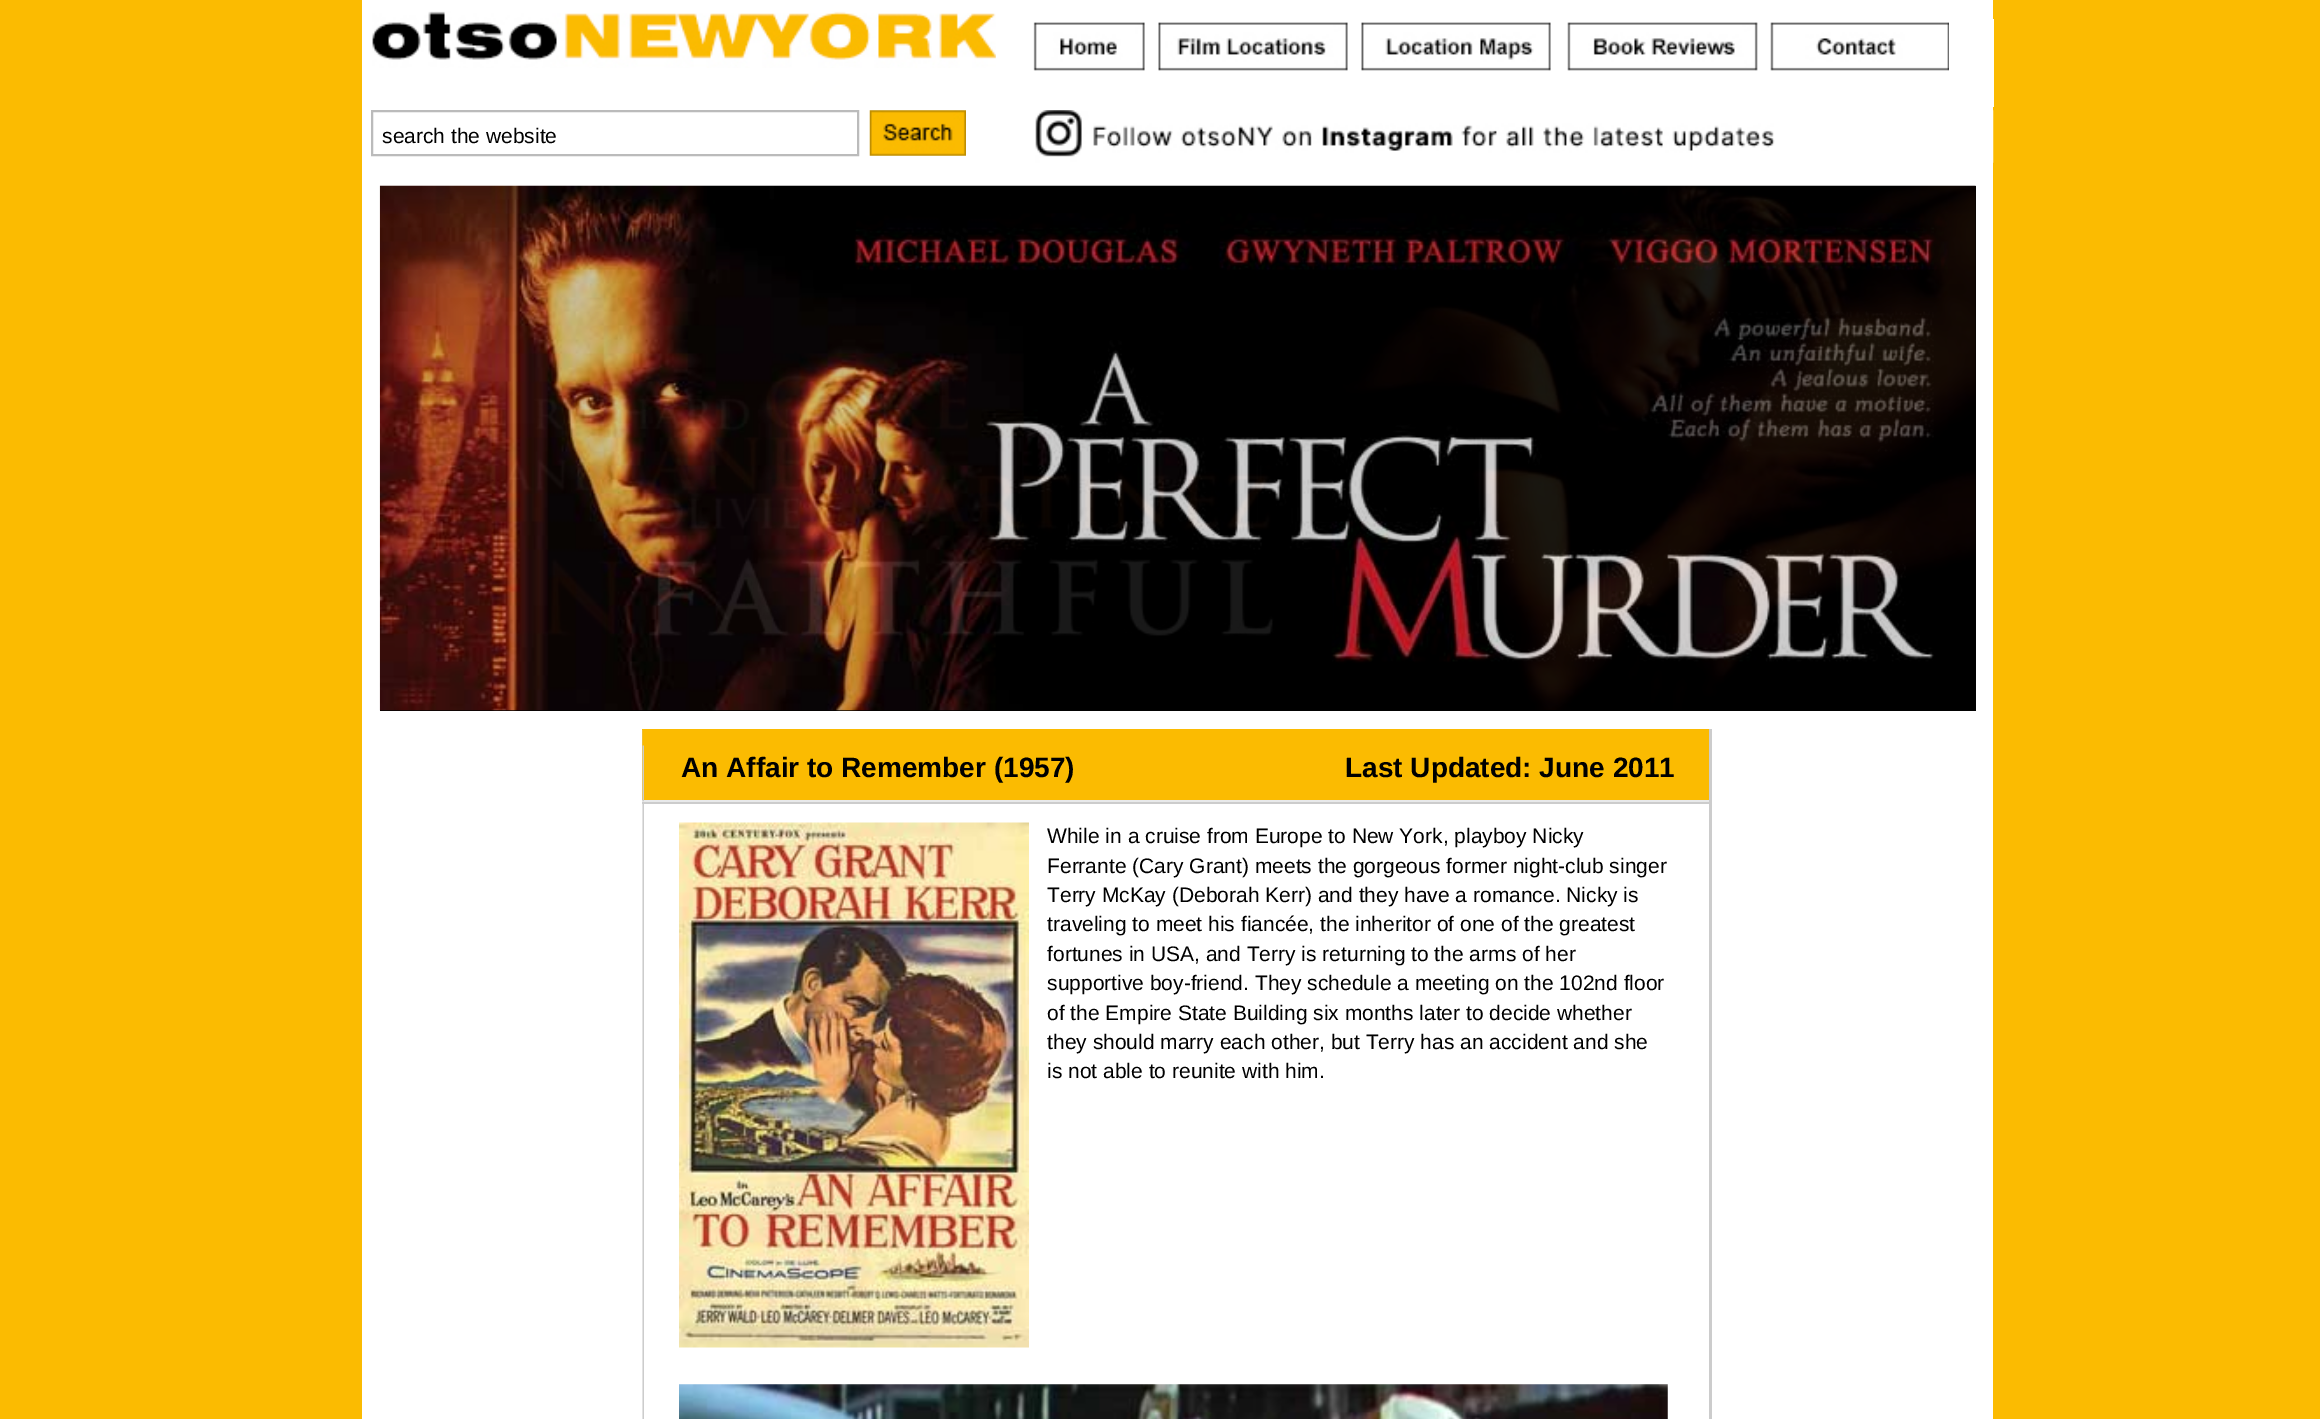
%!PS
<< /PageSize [2320 1419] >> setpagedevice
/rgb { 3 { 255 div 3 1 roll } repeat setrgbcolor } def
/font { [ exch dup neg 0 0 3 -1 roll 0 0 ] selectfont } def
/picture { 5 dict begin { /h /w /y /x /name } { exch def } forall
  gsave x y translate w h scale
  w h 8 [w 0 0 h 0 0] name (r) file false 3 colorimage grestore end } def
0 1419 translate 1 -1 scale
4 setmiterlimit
251 187 1 rgb
0 0 2320 1419 rectfill
255 255 255 rgb
362 0 1631 1419 rectfill
(img/1.rgb) 372 11 624 57 picture
187 187 187 rgb
2 setlinewidth
372 111 486 44 rectstroke
(img/2.rgb) 869 110 97 46 picture
(img/3.rgb) 1033 22 112 49 picture
(img/4.rgb) 1158 22 190 49 picture
(img/5.rgb) 1361 22 190 49 picture
(img/6.rgb) 1567 22 191 49 picture
(img/7.rgb) 1770 22 179 49 picture
255 255 255 rgb
1993 19 1 88 rectfill
(img/8.rgb) 1035 110 959 53 picture
3 3 3 rgb
380 186 1596 525 rectfill
(img/9.rgb) 379 185 1597 526 picture
(img/10.rgb) 380 185 1596 525 picture
(img/11.rgb) 642 804 2 615 picture
[
  [1709 804 3 615 204 204 204]
  [642 800 1067 2 232 233 234]
  [642 729 1067 71 251 187 1]
  [642 802 1070 2 204 204 204]
] { aload pop rgb rectfill } forall
(img/12.rgb) 642 729 2 73 picture
1709 729 3 73 rectfill
(img/13.rgb) 642 730 2 16 picture
(img/14.rgb) 679 822 350 526 picture
(img/15.rgb) 679 1384 989 35 picture
/LiberationSans-Regular 21 font
0 0 0 rgb
382 143 moveto (search the website) show
/LiberationSans-Bold 28 font
681 777 moveto (An Affair to Remember \(1957\)) show
1345 777 moveto (Last Updated: June 2011) show
/LiberationSans-Regular 21 font
[
  [(While in a cruise from Europe to New York, playboy Nicky) 1047 843]
  [(Ferrante \(Cary Grant\) meets the gorgeous former night-club singer) 1047 873]
  [(Terry McKay \(Deborah Kerr\) and they have a romance. Nicky is) 1047 902]
  [(traveling to meet his fiancée, the inheritor of one of the greatest) 1047 931]
  [(fortunes in USA, and Terry is returning to the arms of her) 1047 961]
  [(supportive boy-friend. They schedule a meeting on the 102nd floor) 1047 990]
  [(of the Empire State Building six months later to decide whether) 1047 1020]
  [(they should marry each other, but Terry has an accident and she) 1047 1049]
  [(is not able to reunite with him.) 1047 1078]
] { aload pop moveto show } forall
showpage
